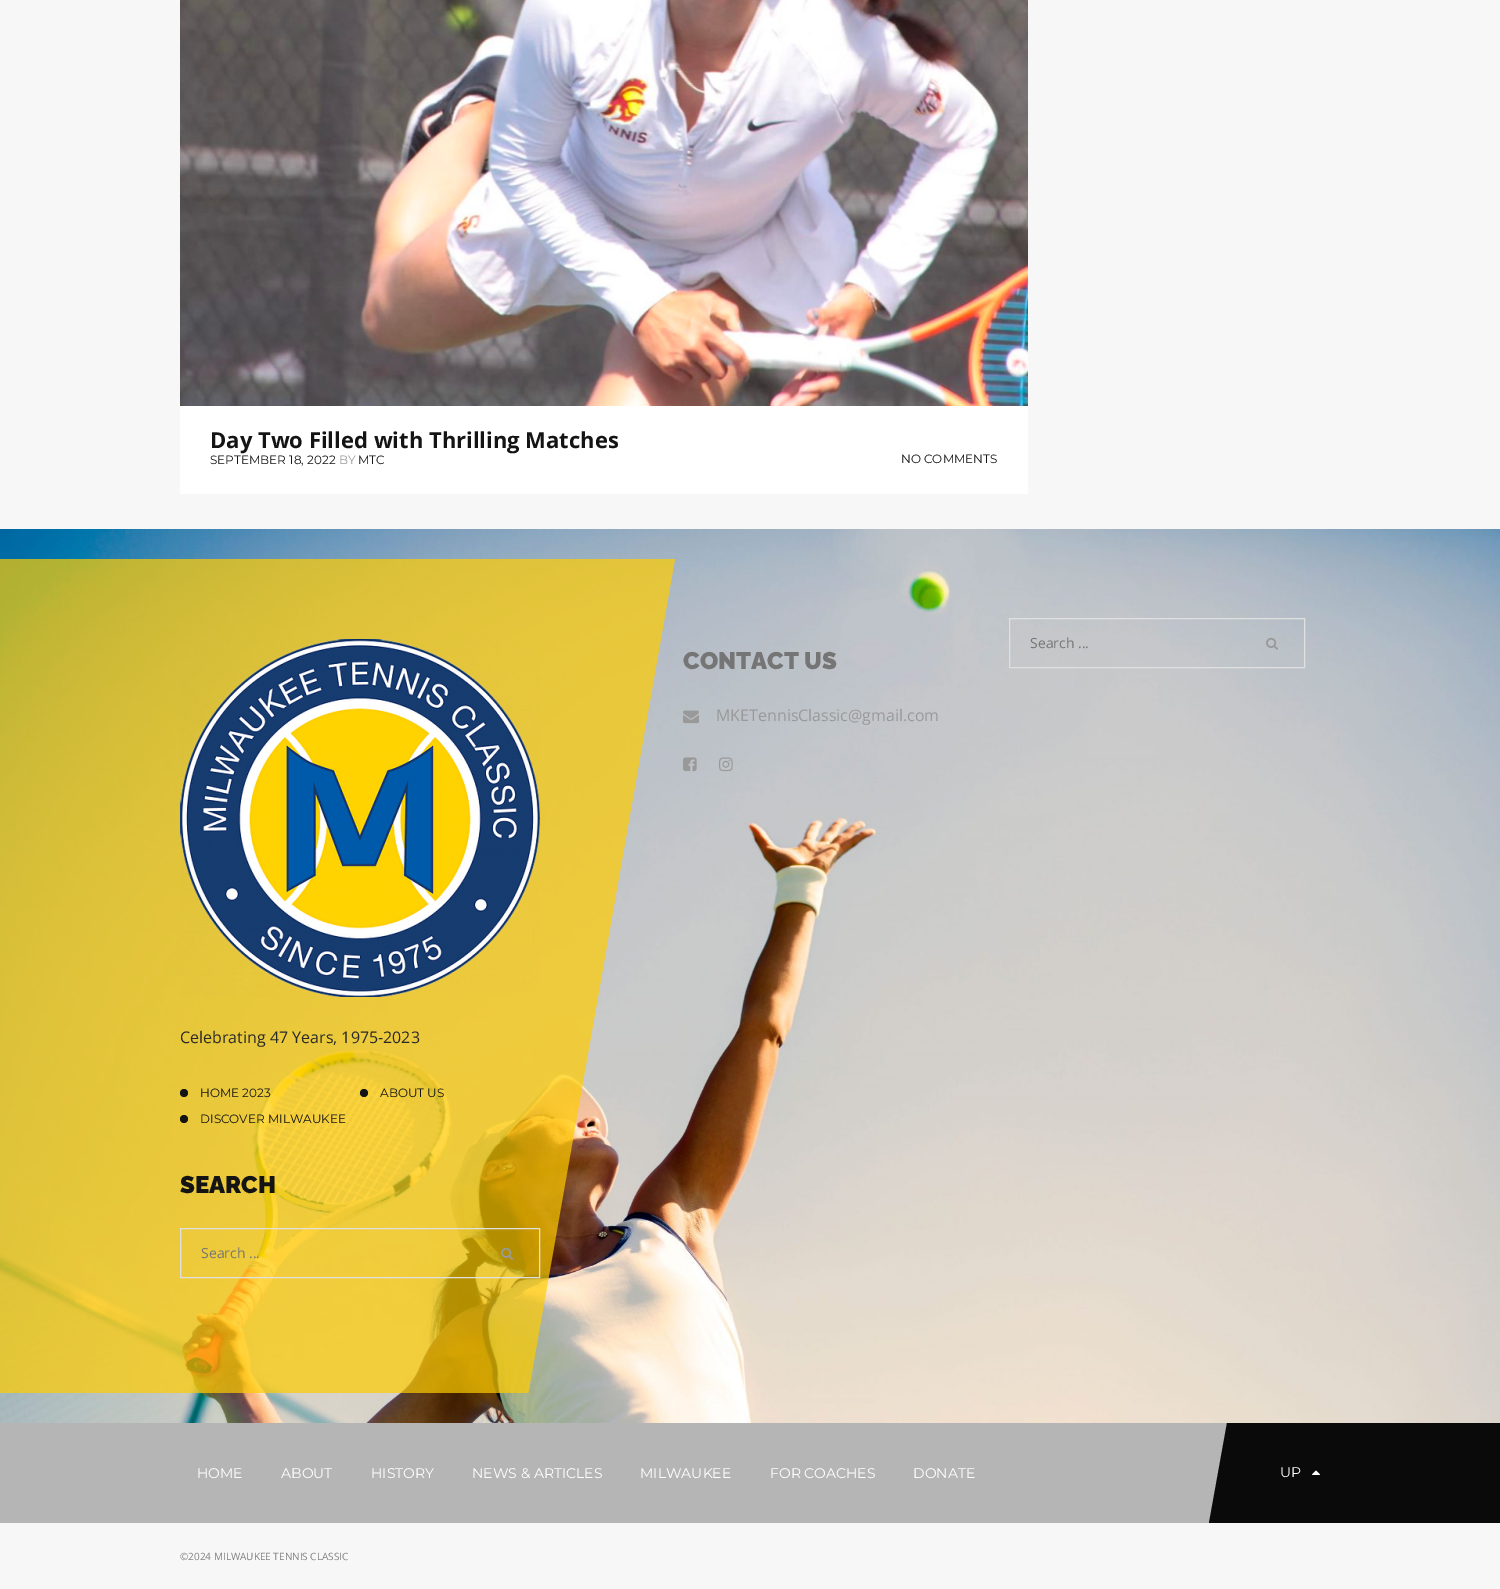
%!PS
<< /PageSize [1500 1589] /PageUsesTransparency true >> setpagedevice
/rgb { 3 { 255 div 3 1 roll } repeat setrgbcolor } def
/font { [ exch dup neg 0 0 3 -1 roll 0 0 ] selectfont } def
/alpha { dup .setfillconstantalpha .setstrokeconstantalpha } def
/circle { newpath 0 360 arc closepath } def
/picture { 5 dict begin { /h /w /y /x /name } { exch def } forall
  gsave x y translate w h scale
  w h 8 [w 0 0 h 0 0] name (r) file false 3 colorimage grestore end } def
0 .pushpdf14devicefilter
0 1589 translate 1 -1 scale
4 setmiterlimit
247 247 247 rgb
0 0 1500 1589 rectfill
(img/1.rgb) 180 0 848 406 picture
255 255 255 rgb
180 406 848 88 rectfill
(img/2.rgb) 0 529 1500 894 picture
224 224 224 rgb
1009.5 618.5 295 49 rectstroke
(img/3.rgb) 1266 637 12 13 picture
(img/4.rgb) 683 710 16 14 picture
(img/5.rgb) 683 757 14 15 picture
(img/6.rgb) 719 757 14 15 picture
gsave
0 559 1500 834 rectclip
0.7 alpha
255 204 0 rgb
-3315 559 moveto 675 559 lineto 465 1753 lineto -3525 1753 lineto closepath fill
grestore
(img/7.rgb) 180 639 360 358 picture
20 20 20 rgb
184 1093 4 circle fill
364 1093 4 circle fill
184 1119 4 circle fill
224 224 224 rgb
180.5 1228.5 359 49 rectstroke
(img/8.rgb) 501 1247 12 13 picture
181 181 181 rgb
0 1423 1227 100 rectfill
10 10 10 rgb
1227 1423 moveto 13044 1423 lineto 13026 1523 lineto 1209 1523 lineto closepath fill
(img/9.rgb) 1312 1470 8 5 picture
/OpenSans-Bold 22 font
20 20 20 rgb
210 448 moveto (Day Two Filled with Thrilling Matches) show
/Montserrat-Regular 12 font
210 464 moveto (SEPTEMBER 18, 2022) show
153 153 153 rgb
339 464 moveto (BY) show
20 20 20 rgb
358 464 moveto (MTC) show
901 463 moveto (NO COMMENTS) show
/OpenSans-Regular 14 font
117 117 117 rgb
1030 648 moveto (Search ...) show
/Raleway-Black 24 font
683 669 moveto (CONTACT US) show
/OpenSans-Regular 16 font
153 153 153 rgb
716 721 moveto (MKETennisClassic@gmail.com) show
41 41 41 rgb
180 1043 moveto (Celebrating 47 Years, 1975-2023) show
/Montserrat-Regular 12 font
20 20 20 rgb
[
  [(HOME 2023) 200 1097]
  [(ABOUT US) 380 1097]
  [(DISCOVER MILWAUKEE) 200 1123]
] { aload pop moveto show } forall
/Raleway-Black 24 font
180 1193 moveto (SEARCH) show
/OpenSans-Regular 14 font
117 117 117 rgb
201 1258 moveto (Search ...) show
/Montserrat-Regular 14 font
255 255 255 rgb
[
  [(HOME) 197 1478]
  [(ABOUT) 281 1478]
  [(HISTORY) 371 1478]
  [(NEWS & ARTICLES) 472 1478]
  [(MILWAUKEE) 640 1478]
  [(FOR COACHES) 770 1478]
  [(DONATE) 913 1478]
  [(UP) 1280 1477]
] { aload pop moveto show } forall
/OpenSans-Regular 10 font
128 128 128 rgb
180 1560 moveto (©2024 MILWAUKEE TENNIS CLASSIC) show
.poppdf14devicefilter showpage
